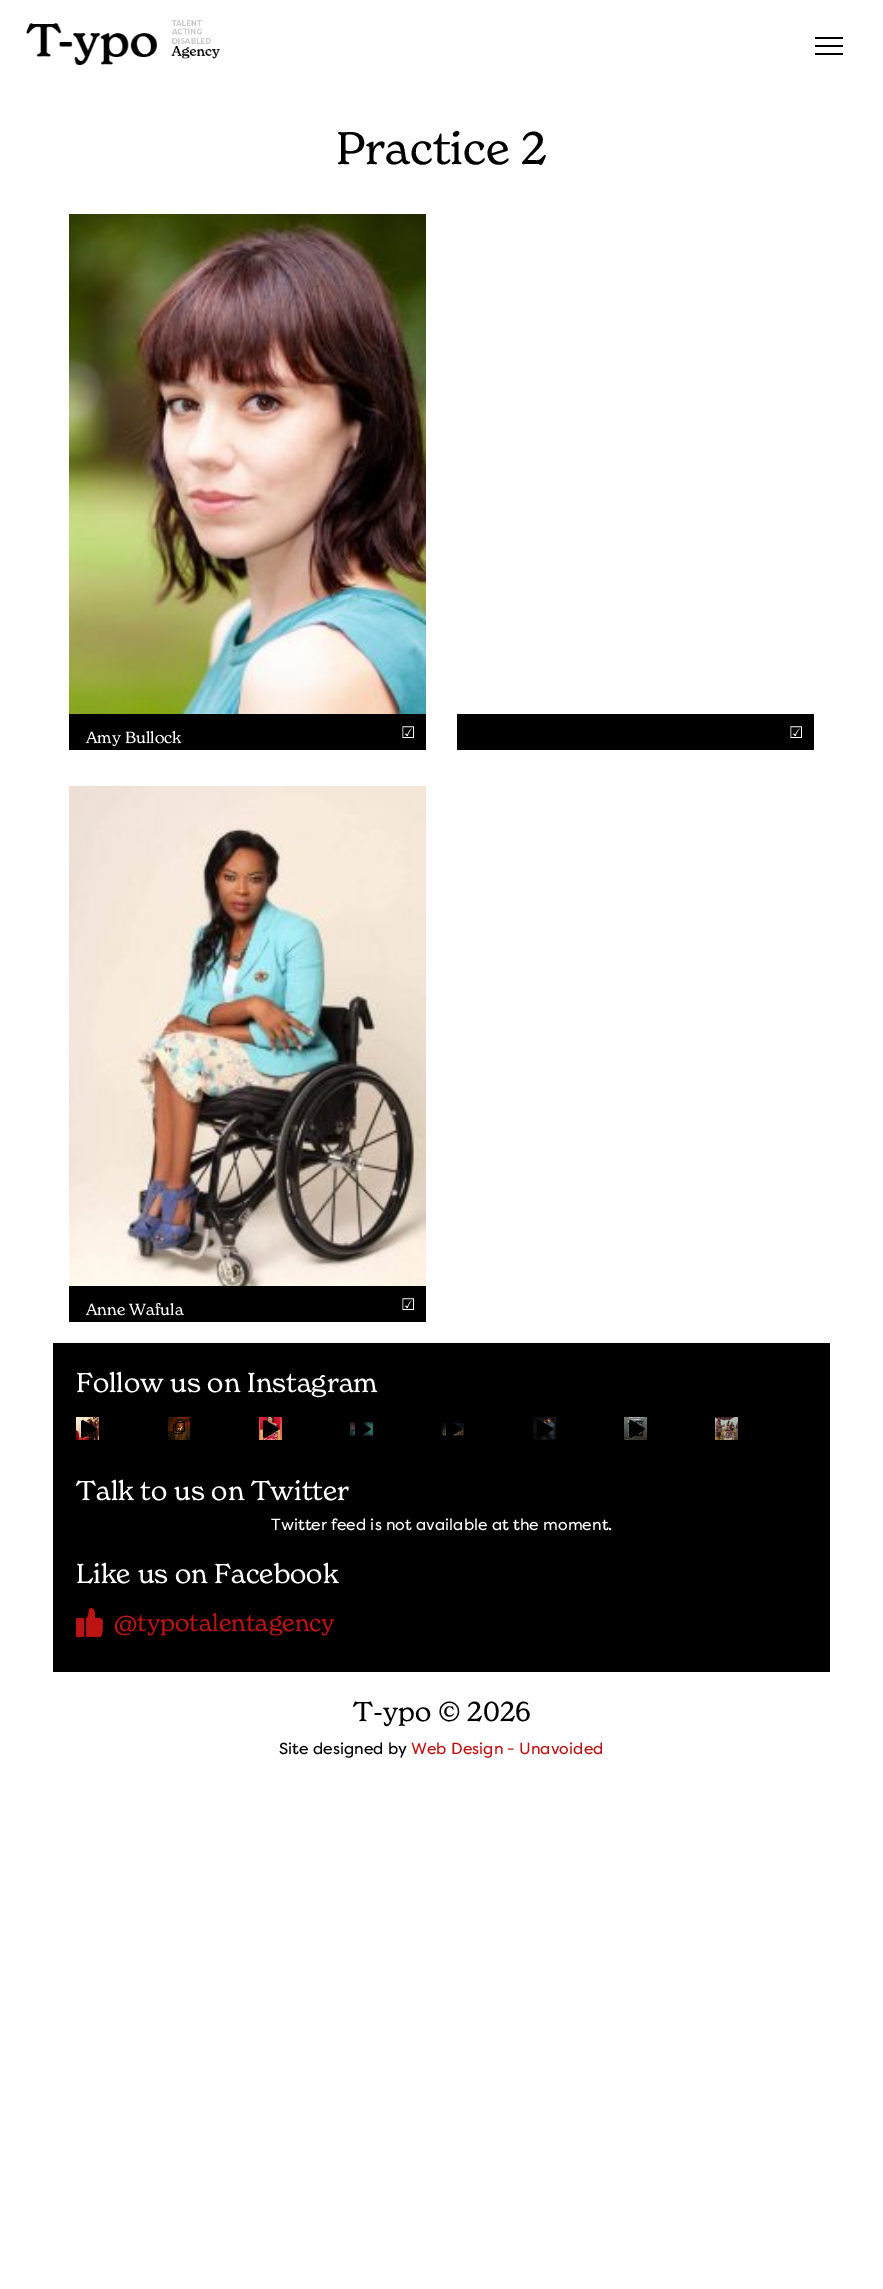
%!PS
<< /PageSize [883 2289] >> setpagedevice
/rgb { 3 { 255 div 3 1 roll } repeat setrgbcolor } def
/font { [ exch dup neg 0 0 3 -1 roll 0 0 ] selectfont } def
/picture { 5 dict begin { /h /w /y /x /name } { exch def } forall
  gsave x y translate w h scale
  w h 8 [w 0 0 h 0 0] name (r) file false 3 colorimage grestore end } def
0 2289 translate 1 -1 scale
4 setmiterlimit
255 255 255 rgb
0 0 883 2289 rectfill
(img/1.rgb) 26 20 194 45 picture
[
  [815 45 28 2 0 0 0]
  [815 37 28 2 0 0 0]
  [815 53 28 2 0 0 0]
] { aload pop rgb rectfill } forall
(img/2.rgb) 69 214 357 500 picture
69 714 357 36 rectfill
457 714 357 36 rectfill
(img/3.rgb) 69 786 357 500 picture
69 1286 357 36 rectfill
53 1343 777 329 rectfill
(img/4.rgb) 76 1417 23 23 picture
(img/5.rgb) 81 1420 16 18 picture
(img/6.rgb) 168 1417 22 23 picture
(img/7.rgb) 173 1422 12 12 picture
(img/8.rgb) 259 1417 23 23 picture
(img/9.rgb) 263 1420 16 18 picture
(img/10.rgb) 350 1422 23 14 picture
(img/11.rgb) 355 1422 16 14 picture
(img/12.rgb) 442 1422 22 14 picture
(img/13.rgb) 446 1422 16 14 picture
(img/14.rgb) 533 1417 23 23 picture
(img/15.rgb) 537 1420 16 18 picture
(img/16.rgb) 624 1417 23 23 picture
(img/17.rgb) 629 1420 16 18 picture
(img/18.rgb) 715 1417 23 23 picture
(img/19.rgb) 76 1608 27 29 picture
/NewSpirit-Regular 45 font
336 164 moveto (Practice 2) show
/NewSpirit-Regular 16 font
255 255 255 rgb
86 743 moveto (Amy Bullock) show
/DejaVuSans-Regular 16 font
401 738 moveto (☑) show
789 738 moveto (☑) show
/NewSpirit-Regular 16 font
86 1315 moveto (Anne Wafula) show
/DejaVuSans-Regular 16 font
401 1310 moveto (☑) show
/NewSpirit-Regular 27 font
76 1392 moveto (Follow us on Instagram) show
76 1500 moveto (Talk to us on Twitter) show
/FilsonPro-Regular 16 font
271 1530 moveto (Twitter feed is not available at the moment.) show
/NewSpirit-Regular 27 font
76 1583 moveto (Like us on Facebook) show
/NewSpirit-Regular 24 font
188 19 19 rgb
114 1631 moveto (@typotalentagency) show
/NewSpirit-Regular 27 font
0 0 0 rgb
353 1721 moveto (T-ypo © 2026) show
/FilsonPro-Regular 16 font
279 1754 moveto (Site designed by) show
188 19 19 rgb
411 1754 moveto (Web Design - Unavoided) show
showpage
